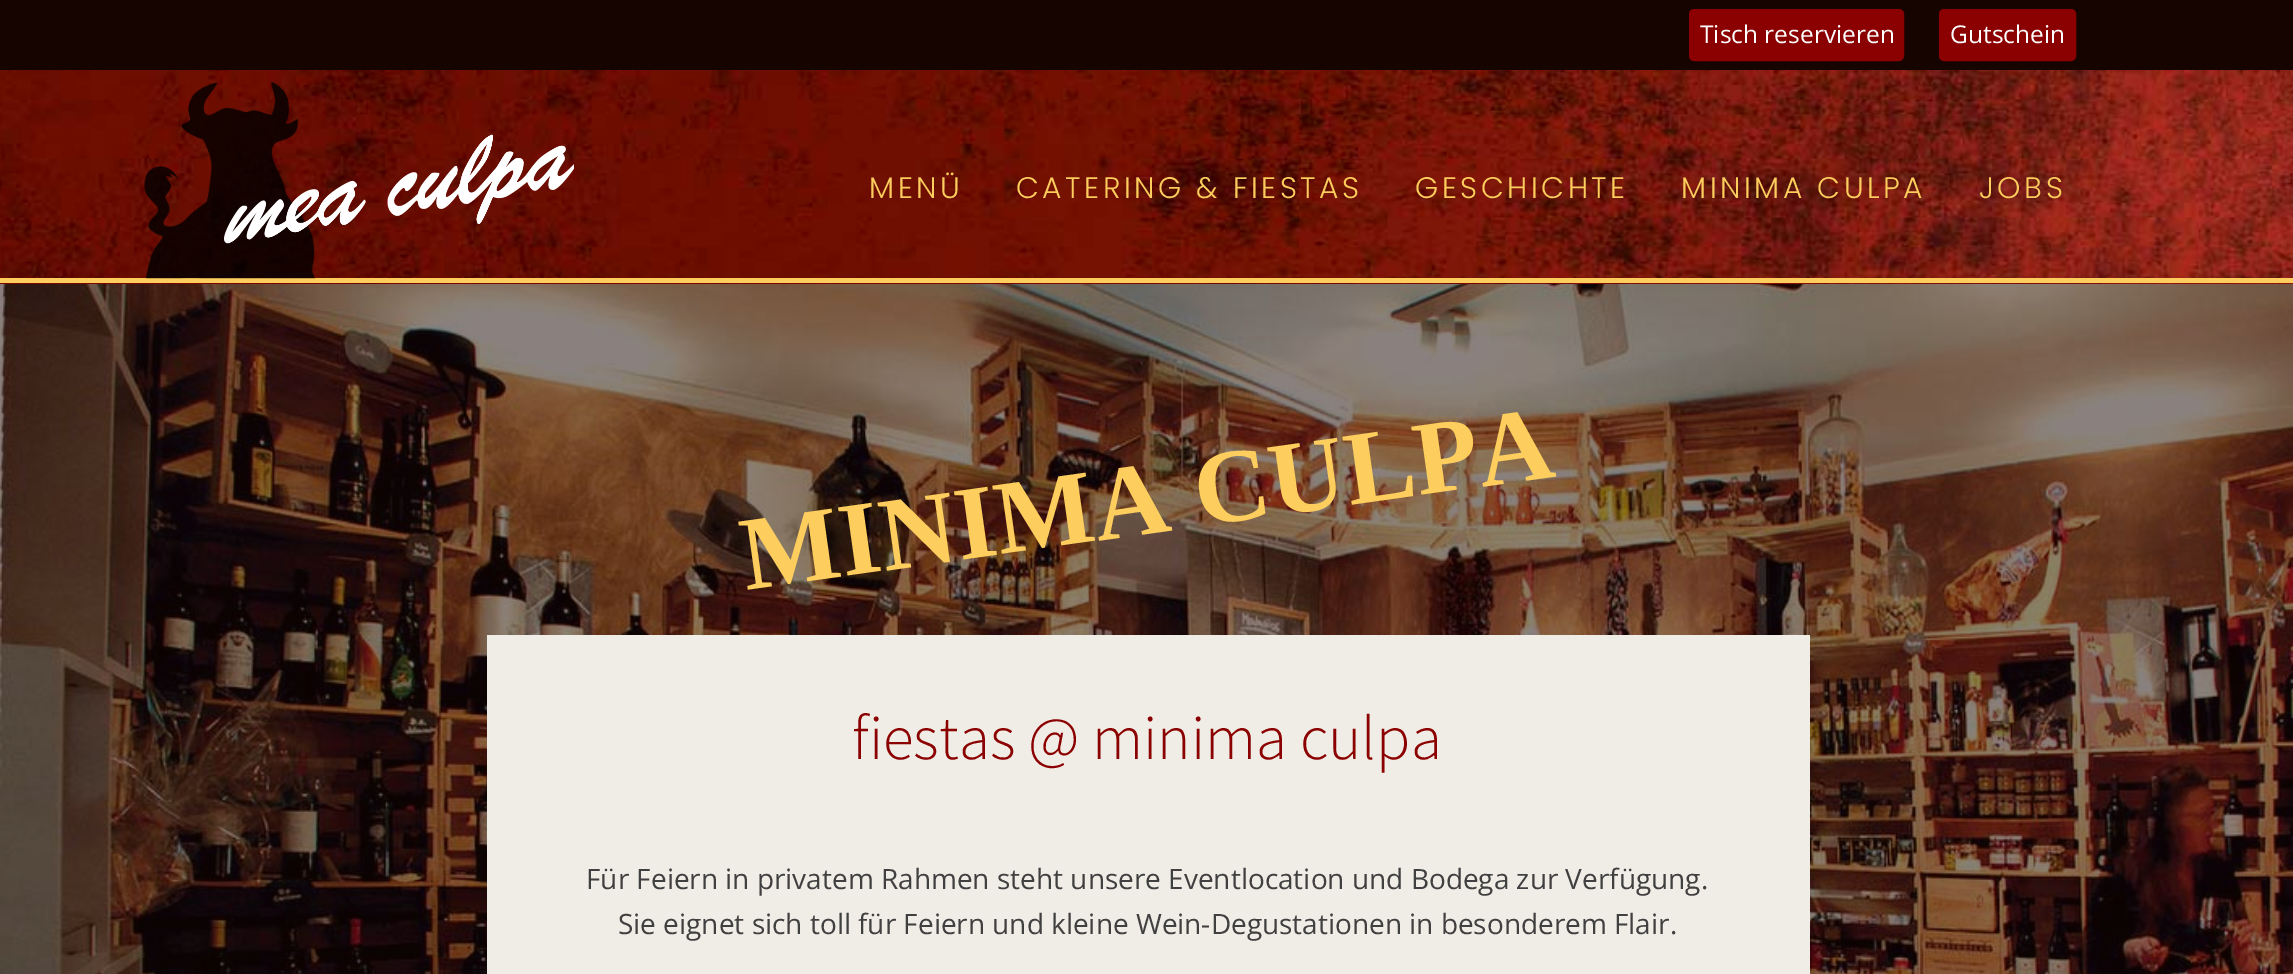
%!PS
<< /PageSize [2293 974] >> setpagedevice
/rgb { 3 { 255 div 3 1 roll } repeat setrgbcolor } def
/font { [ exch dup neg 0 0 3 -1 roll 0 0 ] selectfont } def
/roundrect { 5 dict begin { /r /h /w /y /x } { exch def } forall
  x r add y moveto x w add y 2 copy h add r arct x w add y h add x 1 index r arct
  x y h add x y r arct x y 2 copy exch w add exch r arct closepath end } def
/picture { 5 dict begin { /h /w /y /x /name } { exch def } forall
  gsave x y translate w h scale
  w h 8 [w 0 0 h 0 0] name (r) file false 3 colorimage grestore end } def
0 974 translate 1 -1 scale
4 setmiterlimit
22 4 1 rgb
0 0 2293 974 rectfill
139 0 0 rgb
1690 10 213 50 4 roundrect gsave fill grestore
2 setlinewidth
stroke
1940 10 135 50 4 roundrect gsave fill grestore
stroke
0 283 2293 1 rectfill
(img/1.rgb) 0 70 2293 214 picture
253 206 93 rgb
0 278 2293 5 rectfill
(img/2.rgb) 144 82 172 197 picture
(img/3.rgb) 224 134 350 110 picture
(img/4.rgb) 0 284 2293 690 picture
240 237 230 rgb
487 635 1323 339 rectfill
/OpenSans-Regular 24.5 font
255 255 255 rgb
1700 43 moveto (Tisch reservieren) show
1950 43 moveto (Gutschein) show
/Poppins-Light 29.75 font
253 206 93 rgb
869 198 moveto 3.5 0 (MENÜ) ashow
1016 198 moveto 3.5 0 (CATERING & FIESTAS) ashow
1415 198 moveto 3.5 0 (GESCHICHTE) ashow
1681 198 moveto 3.5 0 (MINIMA CULPA) ashow
1979 198 moveto 3.5 0 (JOBS) ashow
/LiberationSerif-Bold 105 font
gsave 746 590 translate -8 rotate 0 0 moveto (MINIMA CULPA) show grestore
/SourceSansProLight-Light 63 font
139 0 0 rgb
852 759 moveto (fiestas @ minima culpa) show
/OpenSans-Regular 28 font
64 64 64 rgb
586 889 moveto (Für Feiern in privatem Rahmen steht unsere Eventlocation und Bodega zur Verfügung.) show
618 934 moveto (Sie eignet sich toll für Feiern und kleine Wein-Degustationen in besonderem Flair.) show
showpage
